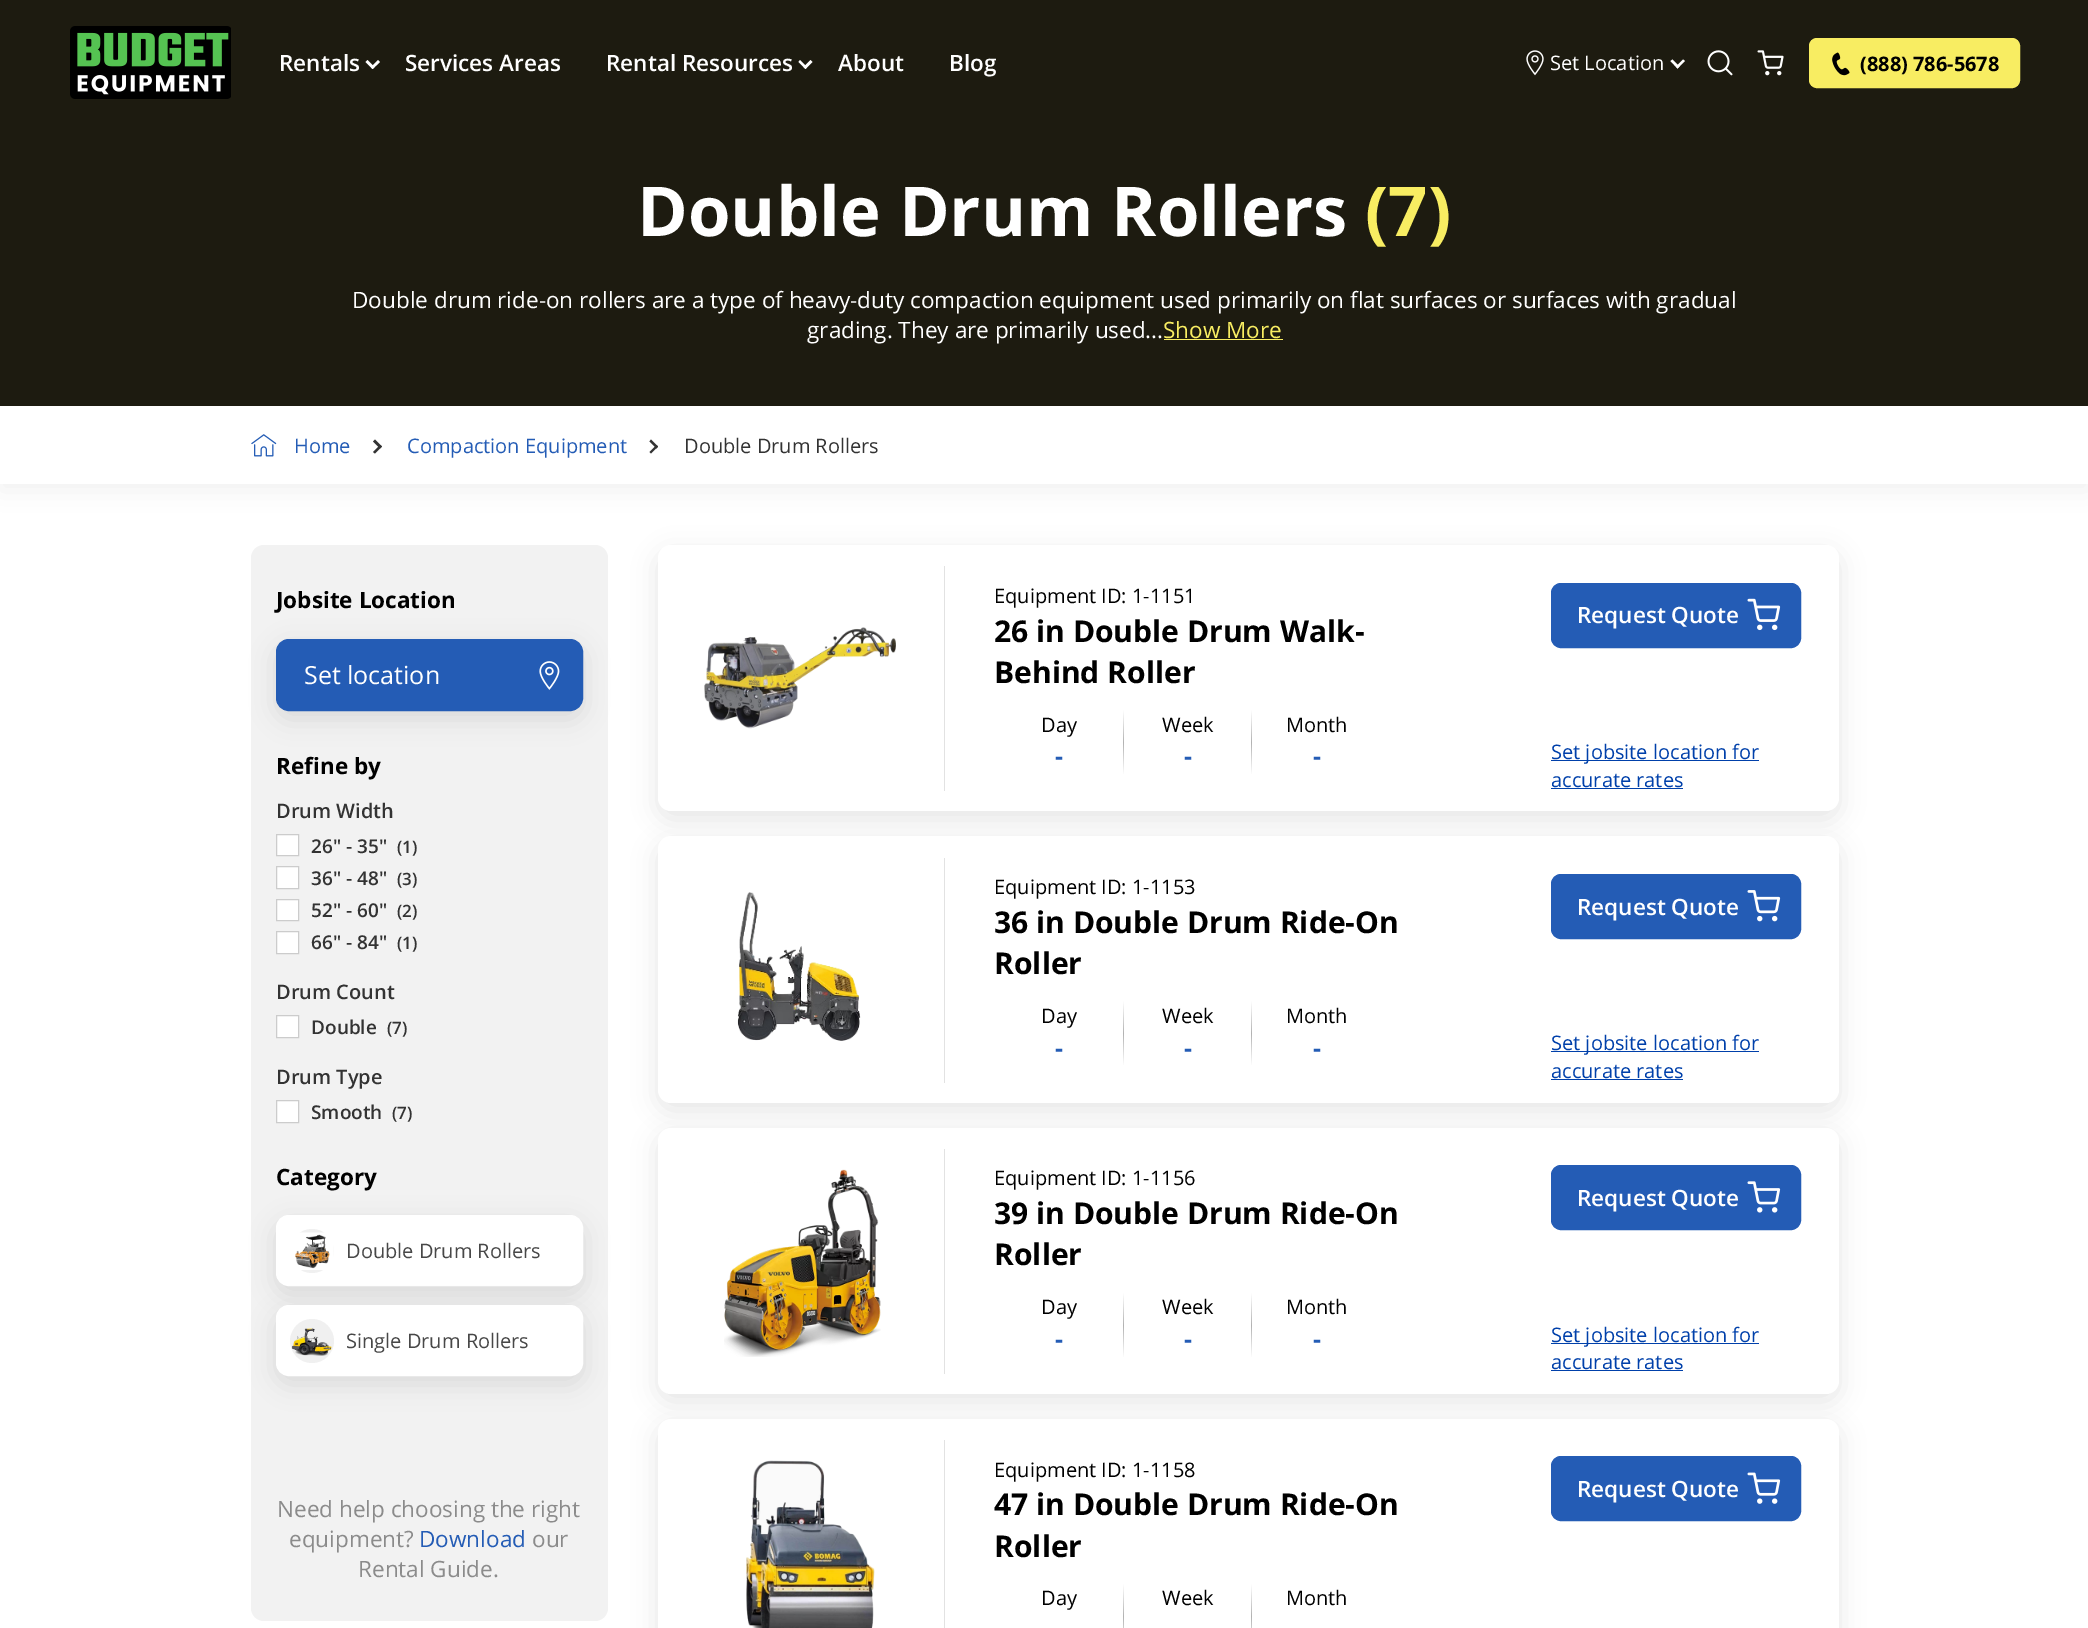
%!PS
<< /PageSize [2088 1628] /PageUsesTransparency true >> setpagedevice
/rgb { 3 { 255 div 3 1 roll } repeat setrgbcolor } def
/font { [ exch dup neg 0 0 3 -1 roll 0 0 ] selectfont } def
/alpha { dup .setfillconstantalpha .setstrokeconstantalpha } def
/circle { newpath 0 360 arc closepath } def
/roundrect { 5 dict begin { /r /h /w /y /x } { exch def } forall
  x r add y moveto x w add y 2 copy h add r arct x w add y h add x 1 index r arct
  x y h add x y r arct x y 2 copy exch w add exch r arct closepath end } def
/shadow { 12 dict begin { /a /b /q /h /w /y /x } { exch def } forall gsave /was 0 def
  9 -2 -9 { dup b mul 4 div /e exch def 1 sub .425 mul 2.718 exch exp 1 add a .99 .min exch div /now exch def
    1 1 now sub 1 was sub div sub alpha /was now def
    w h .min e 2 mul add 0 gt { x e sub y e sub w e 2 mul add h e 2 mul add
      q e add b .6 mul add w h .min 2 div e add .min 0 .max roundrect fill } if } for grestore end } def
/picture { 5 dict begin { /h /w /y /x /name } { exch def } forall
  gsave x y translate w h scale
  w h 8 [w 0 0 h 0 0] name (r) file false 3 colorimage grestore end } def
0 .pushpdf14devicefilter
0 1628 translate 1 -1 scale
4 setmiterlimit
255 255 255 rgb
0 0 2088 1628 rectfill
0 0 0 rgb
0 414 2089 77 0 12.5 0.05 shadow
29 27 16 rgb
0 0 2088 406 rectfill
(img/1.rgb) 70 26 161 73 picture
255 255 255 rgb
371 67 moveto 378 60 lineto 380 62 lineto 372.5 69 lineto closepath fill
365.5 62 moveto 367.5 60 lineto 374.5 67 lineto 372.5 69 lineto closepath fill
803.5 67 moveto 810.5 60 lineto 812.5 62 lineto 805.5 69 lineto closepath fill
798.5 62 moveto 800 60 lineto 807 67 lineto 805.5 69 lineto closepath fill
(img/2.rgb) 1526 50 18 26 picture
1676 66.5 moveto 1683 59.5 lineto 1685 61 lineto 1677.5 68.5 lineto closepath fill
1670.5 61 moveto 1672.5 59.5 lineto 1679.5 66.5 lineto 1677.5 68.5 lineto closepath fill
(img/3.rgb) 1707 50 26 26 picture
(img/4.rgb) 1757 50 27 26 picture
248 237 98 rgb
1809.5 38.5 210 49 7.5 roundrect gsave fill grestore
stroke
(img/5.rgb) 1832 52 18 24 picture
1164 339 119 1 rectfill
255 255 255 rgb
0 406 2088 78 rectfill
(img/6.rgb) 251 434 26 23 picture
51 51 51 rgb
375 439.5 moveto 382 446.5 lineto 380 448.5 lineto 373 441.5 lineto closepath fill
380 445 moveto 382 446.5 lineto 375 453.5 lineto 373 452 lineto closepath fill
651 439.5 moveto 658 446.5 lineto 656.5 448.5 lineto 649.5 441.5 lineto closepath fill
656.5 445 moveto 658 446.5 lineto 651 453.5 lineto 649.5 452 lineto closepath fill
242 242 242 rgb
251 545 357 1076 13 roundrect fill
0 0 0 rgb
276 646 307 73 13 12.5 0.1 shadow
36 92 181 rgb
276.5 639.5 306 71 12.5 roundrect gsave fill grestore
stroke
(img/7.rgb) 539 661 21 29 picture
255 255 255 rgb
276.5 834.5 moveto 298.5 834.5 lineto 298.5 855.5 lineto 276.5 855.5 lineto closepath gsave fill grestore
204 204 204 rgb
stroke
255 255 255 rgb
276.5 866.5 moveto 298.5 866.5 lineto 298.5 888.5 lineto 276.5 888.5 lineto closepath gsave fill grestore
204 204 204 rgb
stroke
255 255 255 rgb
276.5 899.5 moveto 298.5 899.5 lineto 298.5 920.5 lineto 276.5 920.5 lineto closepath gsave fill grestore
204 204 204 rgb
stroke
255 255 255 rgb
276.5 931.5 moveto 298.5 931.5 lineto 298.5 953.5 lineto 276.5 953.5 lineto closepath gsave fill grestore
204 204 204 rgb
stroke
255 255 255 rgb
276.5 1015.5 moveto 298.5 1015.5 lineto 298.5 1037.5 lineto 276.5 1037.5 lineto closepath gsave fill grestore
204 204 204 rgb
stroke
255 255 255 rgb
276.5 1100.5 moveto 298.5 1100.5 lineto 298.5 1122.5 lineto 276.5 1122.5 lineto closepath gsave fill grestore
204 204 204 rgb
stroke
0 0 0 rgb
276 1223 307 71 13 12.5 0.1 shadow
255 255 255 rgb
276.5 1215.5 306 70 12.5 roundrect gsave fill grestore
stroke
240 240 240 rgb
312 1251 22 circle fill
(img/8.rgb) 290 1232 44 38 picture
0 0 0 rgb
276 1313 307 71 13 12.5 0.1 shadow
255 255 255 rgb
276.5 1305.5 306 70 12.5 roundrect gsave fill grestore
stroke
240 240 240 rgb
312 1341 22 circle fill
(img/9.rgb) 291 1328 41 28 picture
0 0 0 rgb
658 553 1181 266 13 12.5 0.1 shadow
255 255 255 rgb
658 545 1181 266 13 roundrect fill
226 226 226 rgb
944 566 1 225 rectfill
(img/10.rgb) 704 627 192 102 picture
gsave 1123 710 moveto 1124 710 lineto 1124 775 lineto 1123 775 lineto closepath clip newpath
<< /ShadingType 2 /ColorSpace /DeviceRGB /Coords [1123 710 1123 775] /Extend [true true] /Function << /FunctionType 3 /Domain [0 1] /Functions [<< /FunctionType 2 /Domain [0 1] /C0 [1 1 1] /C1 [0.698 0.698 0.698] /N 1 >> << /FunctionType 2 /Domain [0 1] /C0 [0.698 0.698 0.698] /C1 [1 1 1] /N 1 >>] /Bounds [0.5] /Encode [0 1 0 1] >> >> shfill grestore
gsave 1251 710 moveto 1252 710 lineto 1252 775 lineto 1251 775 lineto closepath clip newpath
<< /ShadingType 2 /ColorSpace /DeviceRGB /Coords [1252 710 1252 775] /Extend [true true] /Function << /FunctionType 3 /Domain [0 1] /Functions [<< /FunctionType 2 /Domain [0 1] /C0 [1 1 1] /C1 [0.698 0.698 0.698] /N 1 >> << /FunctionType 2 /Domain [0 1] /C0 [0.698 0.698 0.698] /C1 [1 1 1] /N 1 >>] /Bounds [0.5] /Encode [0 1 0 1] >> >> shfill grestore
36 92 181 rgb
1551.5 583.5 249 64 9.5 roundrect gsave fill grestore
stroke
(img/11.rgb) 1747 598 34 33 picture
0 64 170 rgb
1551 760 208 1 rectfill
1551 788 132 1 rectfill
0 0 0 rgb
658 844 1181 266 13 12.5 0.1 shadow
255 255 255 rgb
658 836 1181 267 13 roundrect fill
226 226 226 rgb
944 858 1 225 rectfill
(img/12.rgb) 737 892 124 149 picture
gsave 1123 1001 moveto 1124 1001 lineto 1124 1066 lineto 1123 1066 lineto closepath clip newpath
<< /ShadingType 2 /ColorSpace /DeviceRGB /Coords [1123 1001 1123 1066] /Extend [true true] /Function << /FunctionType 3 /Domain [0 1] /Functions [<< /FunctionType 2 /Domain [0 1] /C0 [1 1 1] /C1 [0.698 0.698 0.698] /N 1 >> << /FunctionType 2 /Domain [0 1] /C0 [0.698 0.698 0.698] /C1 [1 1 1] /N 1 >>] /Bounds [0.5] /Encode [0 1 0 1] >> >> shfill grestore
gsave 1251 1001 moveto 1252 1001 lineto 1252 1066 lineto 1251 1066 lineto closepath clip newpath
<< /ShadingType 2 /ColorSpace /DeviceRGB /Coords [1252 1001 1252 1066] /Extend [true true] /Function << /FunctionType 3 /Domain [0 1] /Functions [<< /FunctionType 2 /Domain [0 1] /C0 [1 1 1] /C1 [0.698 0.698 0.698] /N 1 >> << /FunctionType 2 /Domain [0 1] /C0 [0.698 0.698 0.698] /C1 [1 1 1] /N 1 >>] /Bounds [0.5] /Encode [0 1 0 1] >> >> shfill grestore
36 92 181 rgb
1551.5 874.5 249 64 9.5 roundrect gsave fill grestore
stroke
(img/13.rgb) 1747 890 34 32 picture
0 64 170 rgb
1551 1051 208 1 rectfill
1551 1079 132 1 rectfill
0 0 0 rgb
658 1135 1181 266 13 12.5 0.1 shadow
255 255 255 rgb
658 1128 1181 266 13 roundrect fill
226 226 226 rgb
944 1149 1 225 rectfill
(img/14.rgb) 724 1169 157 188 picture
gsave 1123 1293 moveto 1124 1293 lineto 1124 1358 lineto 1123 1358 lineto closepath clip newpath
<< /ShadingType 2 /ColorSpace /DeviceRGB /Coords [1123 1293 1123 1358] /Extend [true true] /Function << /FunctionType 3 /Domain [0 1] /Functions [<< /FunctionType 2 /Domain [0 1] /C0 [1 1 1] /C1 [0.698 0.698 0.698] /N 1 >> << /FunctionType 2 /Domain [0 1] /C0 [0.698 0.698 0.698] /C1 [1 1 1] /N 1 >>] /Bounds [0.5] /Encode [0 1 0 1] >> >> shfill grestore
gsave 1251 1293 moveto 1252 1293 lineto 1252 1358 lineto 1251 1358 lineto closepath clip newpath
<< /ShadingType 2 /ColorSpace /DeviceRGB /Coords [1252 1293 1252 1358] /Extend [true true] /Function << /FunctionType 3 /Domain [0 1] /Functions [<< /FunctionType 2 /Domain [0 1] /C0 [1 1 1] /C1 [0.698 0.698 0.698] /N 1 >> << /FunctionType 2 /Domain [0 1] /C0 [0.698 0.698 0.698] /C1 [1 1 1] /N 1 >>] /Bounds [0.5] /Encode [0 1 0 1] >> >> shfill grestore
36 92 181 rgb
1551.5 1165.5 249 64 9.5 roundrect gsave fill grestore
stroke
(img/15.rgb) 1747 1181 34 32 picture
0 64 170 rgb
1551 1343 208 1 rectfill
1551 1370 132 1 rectfill
0 0 0 rgb
658 1426 1181 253 13 12.5 0.1 shadow
255 255 255 rgb
658 1419 1181 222 13 roundrect fill
226 226 226 rgb
944 1440 1 188 rectfill
(img/16.rgb) 746 1460 129 168 picture
gsave 1123 1584 moveto 1124 1584 lineto 1124 1628 lineto 1123 1628 lineto closepath clip newpath
<< /ShadingType 2 /ColorSpace /DeviceRGB /Coords [1123 1584 1123 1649] /Extend [true true] /Function << /FunctionType 3 /Domain [0 1] /Functions [<< /FunctionType 2 /Domain [0 1] /C0 [1 1 1] /C1 [0.698 0.698 0.698] /N 1 >> << /FunctionType 2 /Domain [0 1] /C0 [0.698 0.698 0.698] /C1 [1 1 1] /N 1 >>] /Bounds [0.5] /Encode [0 1 0 1] >> >> shfill grestore
gsave 1251 1584 moveto 1252 1584 lineto 1252 1628 lineto 1251 1628 lineto closepath clip newpath
<< /ShadingType 2 /ColorSpace /DeviceRGB /Coords [1252 1584 1252 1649] /Extend [true true] /Function << /FunctionType 3 /Domain [0 1] /Functions [<< /FunctionType 2 /Domain [0 1] /C0 [1 1 1] /C1 [0.698 0.698 0.698] /N 1 >> << /FunctionType 2 /Domain [0 1] /C0 [0.698 0.698 0.698] /C1 [1 1 1] /N 1 >>] /Bounds [0.5] /Encode [0 1 0 1] >> >> shfill grestore
36 92 181 rgb
1551.5 1456.5 249 64 9.5 roundrect gsave fill grestore
stroke
(img/17.rgb) 1747 1472 34 32 picture
/OpenSans-SemiBold 22.5 font
255 255 255 rgb
[
  [(Rentals) 279 71]
  [(Services Areas) 405 71]
  [(Rental Resources) 606 71]
  [(About) 838 71]
  [(Blog) 949 71]
] { aload pop moveto show } forall
/OpenSans-Regular 20 font
1550 70 moveto (Set Location) show
/OpenSans-Bold 20 font
0 0 0 rgb
1860 71 moveto (\(888\) 786-5678) show
/OpenSans-Bold 68.75 font
255 255 255 rgb
637 236 moveto (Double Drum Rollers) show
248 237 98 rgb
1365 236 moveto (\(7\)) show
/OpenSans-Regular 22.5 font
255 255 255 rgb
352 308 moveto (Double drum ride-on rollers are a type of heavy-duty compaction equipment used primarily on flat surfaces or surfaces with gradual) show
807 338 moveto (grading. They are primarily used...) show
248 237 98 rgb
1163 338 moveto (Show More) show
/OpenSans-Regular 20 font
36 92 181 rgb
294 453 moveto (Home) show
407 453 moveto (Compaction Equipment) show
51 51 51 rgb
684 453 moveto (Double Drum Rollers) show
/OpenSans-Bold 22.5 font
0 0 0 rgb
276 608 moveto (Jobsite Location) show
/OpenSans-Regular 25 font
255 255 255 rgb
304 684 moveto (Set location) show
/OpenSans-Bold 22.5 font
0 0 0 rgb
276 774 moveto (Refine by) show
/OpenSans-SemiBold 20 font
51 51 51 rgb
276 818 moveto (Drum Width) show
/OpenSans-SemiBold 19 font
311 853 moveto (26" - 35") show
/OpenSans-SemiBold 17 font
397 853 moveto (\(1\)) show
/OpenSans-SemiBold 19 font
311 885 moveto (36" - 48") show
/OpenSans-SemiBold 17 font
397 885 moveto (\(3\)) show
/OpenSans-SemiBold 19 font
311 917 moveto (52" - 60") show
/OpenSans-SemiBold 17 font
397 917 moveto (\(2\)) show
/OpenSans-SemiBold 19 font
311 949 moveto (66" - 84") show
/OpenSans-SemiBold 17 font
397 949 moveto (\(1\)) show
/OpenSans-SemiBold 20 font
276 999 moveto (Drum Count) show
/OpenSans-SemiBold 19 font
311 1034 moveto (Double) show
/OpenSans-SemiBold 17 font
387 1034 moveto (\(7\)) show
/OpenSans-SemiBold 20 font
276 1084 moveto (Drum Type) show
/OpenSans-SemiBold 19 font
311 1119 moveto (Smooth) show
/OpenSans-SemiBold 17 font
392 1119 moveto (\(7\)) show
/OpenSans-Bold 22.5 font
0 0 0 rgb
276 1185 moveto (Category) show
/OpenSans-Regular 20 font
72 72 72 rgb
346 1258 moveto (Double Drum Rollers) show
346 1348 moveto (Single Drum Rollers) show
/OpenSans-Regular 22.5 font
139 139 139 rgb
277 1517 moveto (Need help choosing the right) show
289 1547 moveto (equipment?) show
36 92 181 rgb
419 1547 moveto (Download) show
139 139 139 rgb
532 1547 moveto (our) show
358 1577 moveto (Rental Guide.) show
/OpenSans-Regular 20 font
0 0 0 rgb
994 603 moveto (Equipment ID: 1-1151) show
/OpenSans-Bold 30 font
994 642 moveto (26 in Double Drum Walk-) show
994 683 moveto (Behind Roller) show
/OpenSans-Regular 20 font
1041 732 moveto (Day) show
/OpenSans-Bold 25 font
36 92 181 rgb
1055 765 moveto (-) show
/OpenSans-Regular 20 font
0 0 0 rgb
1162 732 moveto (Week) show
/OpenSans-Bold 25 font
36 92 181 rgb
1184 765 moveto (-) show
/OpenSans-Regular 20 font
0 0 0 rgb
1286 732 moveto (Month) show
/OpenSans-Bold 25 font
36 92 181 rgb
1313 765 moveto (-) show
/OpenSans-SemiBold 22.5 font
255 255 255 rgb
1577 623 moveto (Request Quote) show
/OpenSans-Regular 20 font
0 64 170 rgb
1551 759 moveto (Set jobsite location for) show
1551 787 moveto (accurate rates) show
0 0 0 rgb
994 894 moveto (Equipment ID: 1-1153) show
/OpenSans-Bold 30 font
994 933 moveto (36 in Double Drum Ride-On) show
994 974 moveto (Roller) show
/OpenSans-Regular 20 font
1041 1023 moveto (Day) show
/OpenSans-Bold 25 font
36 92 181 rgb
1055 1057 moveto (-) show
/OpenSans-Regular 20 font
0 0 0 rgb
1162 1023 moveto (Week) show
/OpenSans-Bold 25 font
36 92 181 rgb
1184 1057 moveto (-) show
/OpenSans-Regular 20 font
0 0 0 rgb
1286 1023 moveto (Month) show
/OpenSans-Bold 25 font
36 92 181 rgb
1313 1057 moveto (-) show
/OpenSans-SemiBold 22.5 font
255 255 255 rgb
1577 915 moveto (Request Quote) show
/OpenSans-Regular 20 font
0 64 170 rgb
1551 1050 moveto (Set jobsite location for) show
1551 1078 moveto (accurate rates) show
0 0 0 rgb
994 1185 moveto (Equipment ID: 1-1156) show
/OpenSans-Bold 30 font
994 1224 moveto (39 in Double Drum Ride-On) show
994 1265 moveto (Roller) show
/OpenSans-Regular 20 font
1041 1314 moveto (Day) show
/OpenSans-Bold 25 font
36 92 181 rgb
1055 1348 moveto (-) show
/OpenSans-Regular 20 font
0 0 0 rgb
1162 1314 moveto (Week) show
/OpenSans-Bold 25 font
36 92 181 rgb
1184 1348 moveto (-) show
/OpenSans-Regular 20 font
0 0 0 rgb
1286 1314 moveto (Month) show
/OpenSans-Bold 25 font
36 92 181 rgb
1313 1348 moveto (-) show
/OpenSans-SemiBold 22.5 font
255 255 255 rgb
1577 1206 moveto (Request Quote) show
/OpenSans-Regular 20 font
0 64 170 rgb
1551 1342 moveto (Set jobsite location for) show
1551 1369 moveto (accurate rates) show
0 0 0 rgb
994 1477 moveto (Equipment ID: 1-1158) show
/OpenSans-Bold 30 font
994 1515 moveto (47 in Double Drum Ride-On) show
994 1557 moveto (Roller) show
/OpenSans-Regular 20 font
[
  [(Day) 1041 1605]
  [(Week) 1162 1605]
  [(Month) 1286 1605]
] { aload pop moveto show } forall
/OpenSans-SemiBold 22.5 font
255 255 255 rgb
1577 1497 moveto (Request Quote) show
.poppdf14devicefilter showpage
